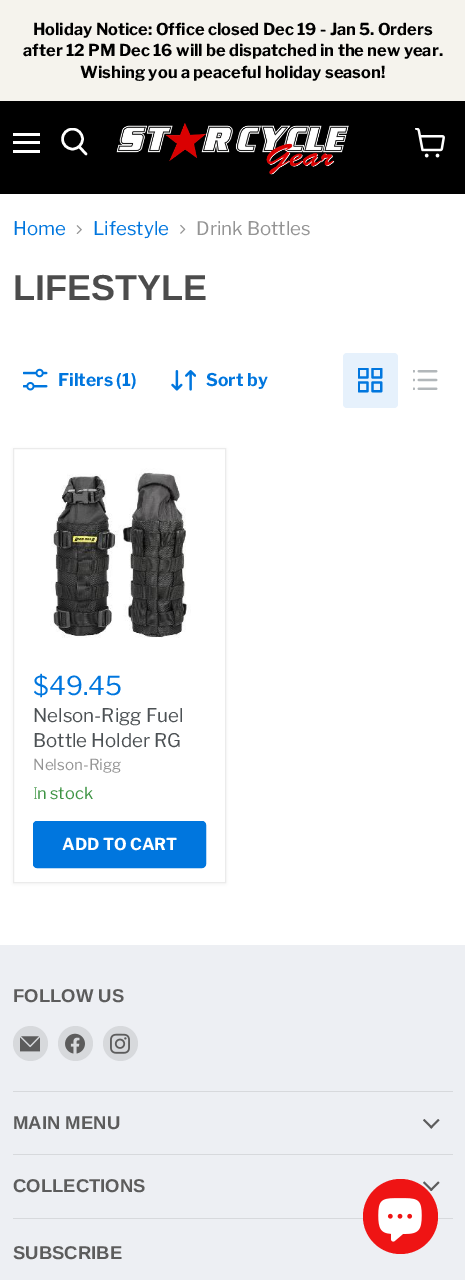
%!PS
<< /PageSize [465 1280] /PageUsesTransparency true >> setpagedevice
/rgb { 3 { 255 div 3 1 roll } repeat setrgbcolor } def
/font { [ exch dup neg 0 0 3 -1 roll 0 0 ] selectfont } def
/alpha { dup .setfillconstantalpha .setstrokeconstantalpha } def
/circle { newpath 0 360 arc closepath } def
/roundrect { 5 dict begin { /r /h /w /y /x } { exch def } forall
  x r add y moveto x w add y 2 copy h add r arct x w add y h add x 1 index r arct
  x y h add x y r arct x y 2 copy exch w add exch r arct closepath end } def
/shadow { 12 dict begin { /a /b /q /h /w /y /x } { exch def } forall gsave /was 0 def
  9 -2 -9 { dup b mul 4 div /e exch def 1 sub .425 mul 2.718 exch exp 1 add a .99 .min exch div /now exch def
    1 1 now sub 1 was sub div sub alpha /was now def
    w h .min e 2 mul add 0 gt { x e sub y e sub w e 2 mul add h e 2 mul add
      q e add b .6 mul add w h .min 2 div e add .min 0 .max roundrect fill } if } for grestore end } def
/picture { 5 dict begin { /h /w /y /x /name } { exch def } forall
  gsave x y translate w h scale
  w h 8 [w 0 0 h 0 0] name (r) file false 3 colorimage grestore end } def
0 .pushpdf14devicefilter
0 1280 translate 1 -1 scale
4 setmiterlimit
255 255 255 rgb
0 0 465 1280 rectfill
[
  [0 0 465 101 245 243 237]
  [0 101 465 93 0 0 0]
  [13 133 27 3 255 255 255]
  [13 141 27 3 255 255 255]
  [13 150 27 3 255 255 255]
] { aload pop rgb rectfill } forall
2.5 setlinewidth
1 setlinecap
86 154 moveto 79.5 147 lineto stroke
gsave
60 128 29 30 rectclip
0 setlinecap
72.5 139 10 circle stroke
grestore
(img/1.rgb) 116 123 233 52 picture
(img/2.rgb) 415 128 30 30 picture
(img/3.rgb) 76 225 6 9 picture
(img/4.rgb) 180 224 6 10 picture
(img/5.rgb) 23 368 25 23 picture
(img/6.rgb) 171 370 25 21 picture
230 241 252 rgb
343 353 55 55 4 roundrect fill
(img/7.rgb) 358 368 25 25 picture
(img/8.rgb) 413 370 25 20 picture
128 128 128 rgb
13 449 213 435 0 2.5 0.11 shadow
255 255 255 rgb
13.5 448.5 moveto 225.5 448.5 lineto 225.5 882.5 lineto 13.5 882.5 lineto closepath gsave fill grestore
235 235 235 rgb
1 setlinewidth
0 setlinecap
stroke
(img/9.rgb) 50 468 141 170 picture
0 118 222 rgb
33.5 821.5 172 46 3.5 roundrect gsave fill grestore
stroke
237 239 243 rgb
0 945 465 335 rectfill
215 217 220 rgb
13 1091 440 1 rectfill
30.5 1043.5 17.5 circle fill
(img/10.rgb) 20 1036 20 16 picture
75.5 1043.5 17.5 circle fill
(img/11.rgb) 65 1033 20 21 picture
120.5 1043.5 17.5 circle fill
(img/12.rgb) 110 1033 20 21 picture
13 1154 440 1 rectfill
(img/13.rgb) 423 1119 17 10 picture
13 1218 440 1 rectfill
(img/14.rgb) 423 1181 17 10 picture
239 20 20 rgb
400.5 1216.5 37.5 circle fill
(img/15.rgb) 378 1198 44 44 picture
/LibreFranklin-Bold 16.4 font
0 0 0 rgb
[
  [(Holiday Notice: Office closed Dec 19 - Jan 5. Orders) 33 35]
  [(after 12 PM Dec 16 will be dispatched in the new year.) 23 56]
  [(Wishing you a peaceful holiday season!) 80 78]
] { aload pop moveto show } forall
/LibreFranklin-Regular 18.75 font
0 118 222 rgb
13 235 moveto (Home) show
93 235 moveto (Lifestyle) show
148 148 148 rgb
196 235 moveto (Drink Bottles) show
/Arimo-Bold 36 font
76 76 76 rgb
13 300 moveto (LIFESTYLE) show
/LibreFranklin-Bold 17.5 font
0 118 222 rgb
58 386 moveto (Filters \(1\)) show
206 386 moveto (Sort by) show
/LibreFranklin-Regular 26 font
33 695 moveto ($49.45) show
/LibreFranklin-Regular 18.75 font
76 81 84 rgb
33 722 moveto (Nelson-Rigg Fuel) show
33 747 moveto (Bottle Holder RG) show
/LibreFranklin-Regular 15.25 font
148 148 148 rgb
33 770 moveto (Nelson-Rigg) show
/NotoSans-ExtraLight 16.4 font
60 147 66 rgb
33 799 moveto (I) show
/LibreFranklin-Regular 16.4 font
37 799 moveto (n stock) show
/LibreFranklin-Bold 16.4 font
255 255 255 rgb
62 850 moveto (ADD TO CART) show
/Arimo-Bold 18.5 font
92 92 92 rgb
[
  [(FOLLOW US) 13 1002]
  [(MAIN MENU) 13 1129]
  [(COLLECTIONS) 13 1192]
  [(SUBSCRIBE) 13 1259]
] { aload pop moveto show } forall
.poppdf14devicefilter showpage
